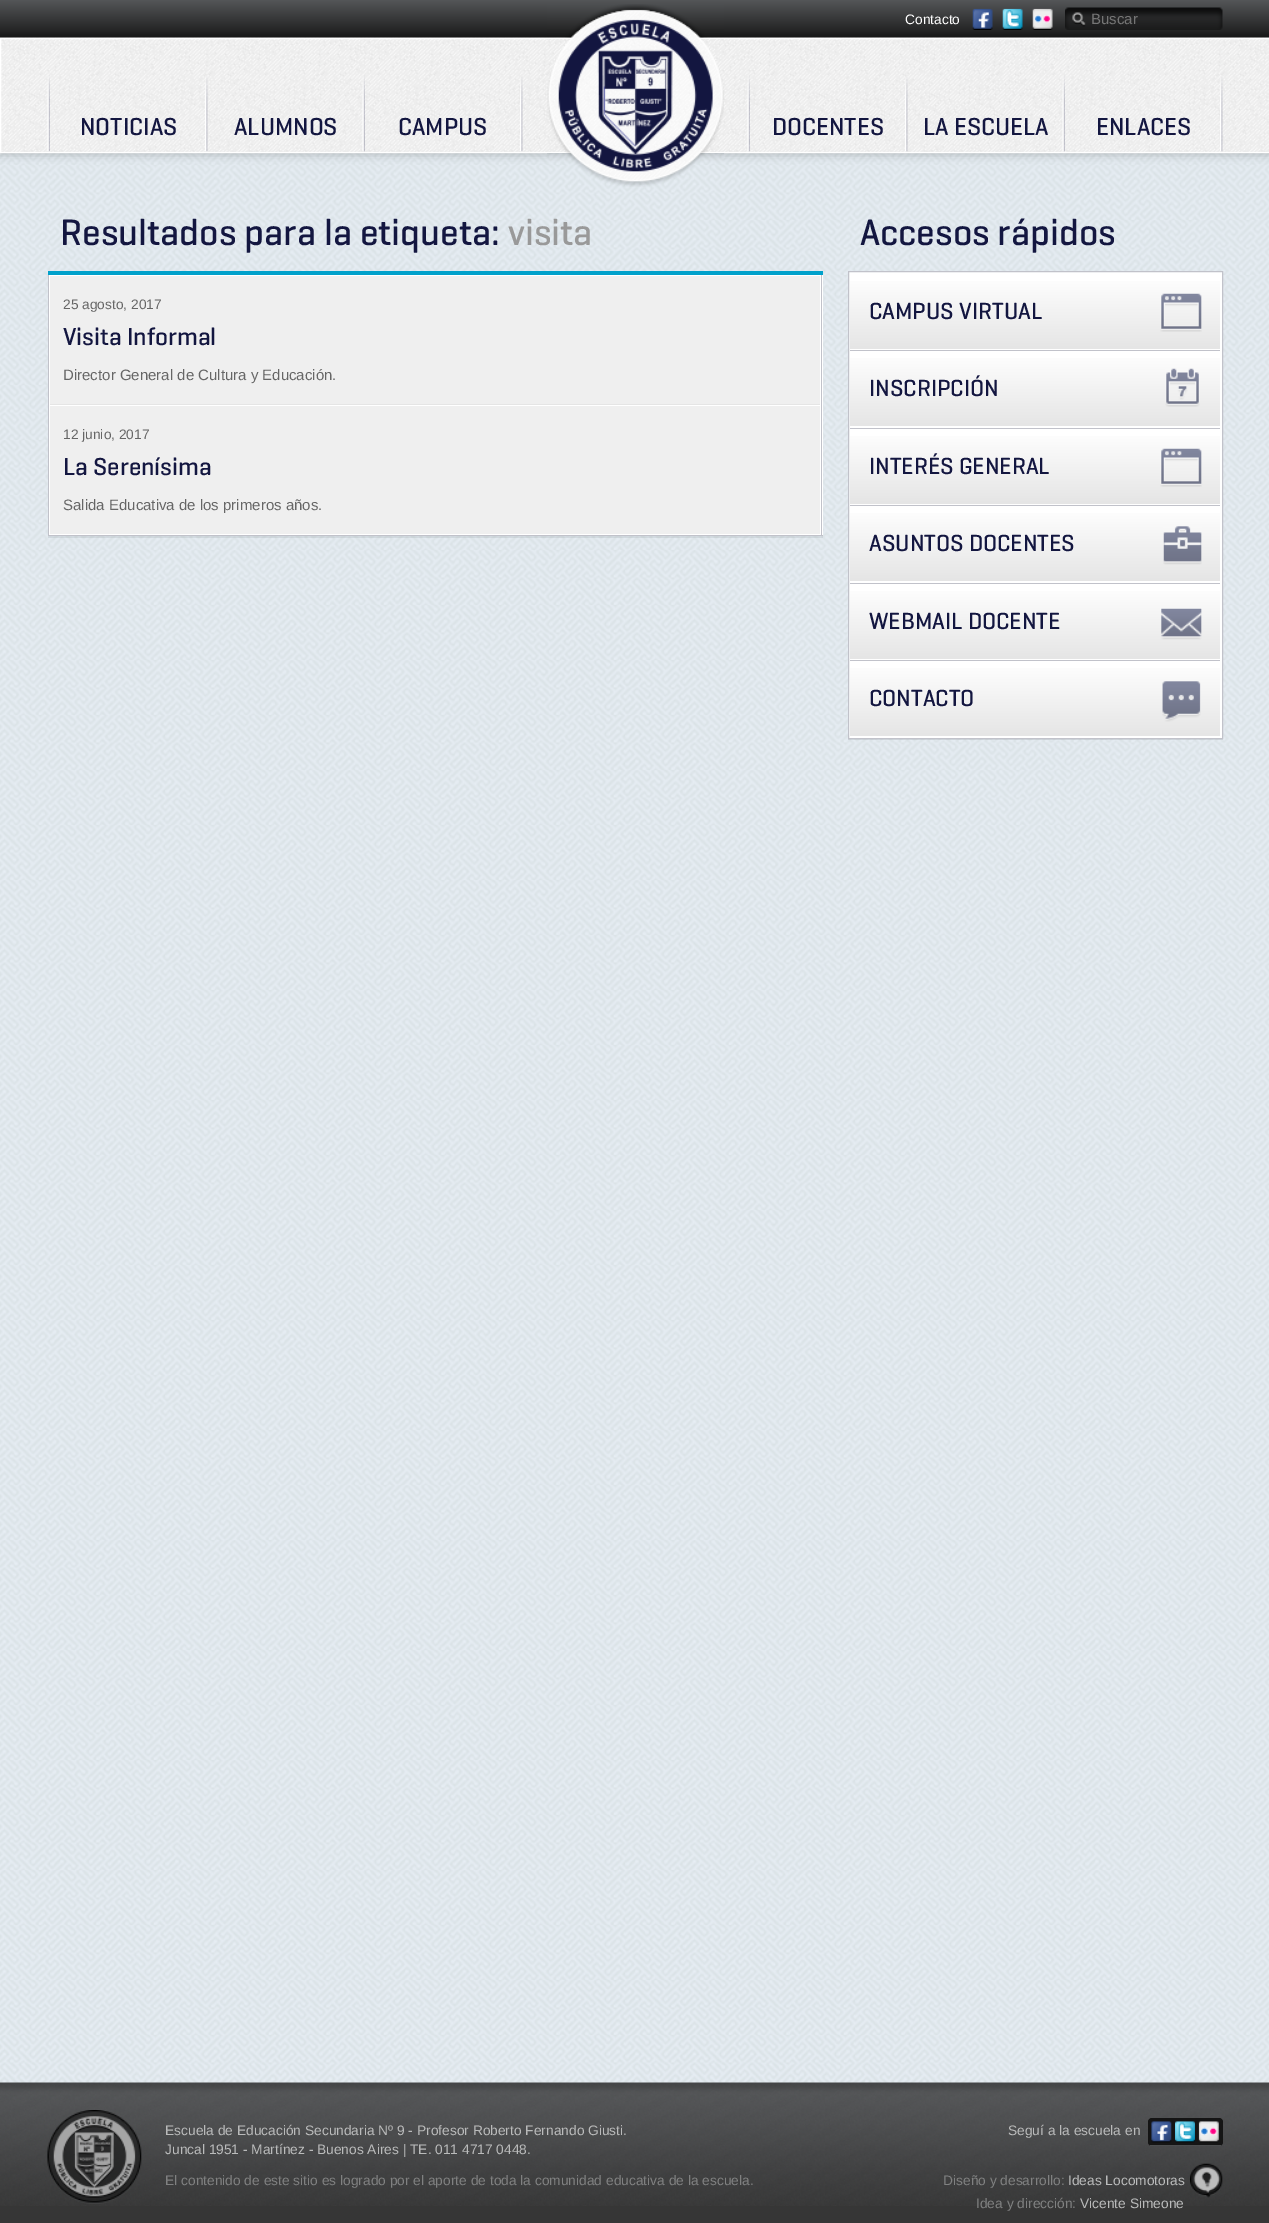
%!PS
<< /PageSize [1269 2223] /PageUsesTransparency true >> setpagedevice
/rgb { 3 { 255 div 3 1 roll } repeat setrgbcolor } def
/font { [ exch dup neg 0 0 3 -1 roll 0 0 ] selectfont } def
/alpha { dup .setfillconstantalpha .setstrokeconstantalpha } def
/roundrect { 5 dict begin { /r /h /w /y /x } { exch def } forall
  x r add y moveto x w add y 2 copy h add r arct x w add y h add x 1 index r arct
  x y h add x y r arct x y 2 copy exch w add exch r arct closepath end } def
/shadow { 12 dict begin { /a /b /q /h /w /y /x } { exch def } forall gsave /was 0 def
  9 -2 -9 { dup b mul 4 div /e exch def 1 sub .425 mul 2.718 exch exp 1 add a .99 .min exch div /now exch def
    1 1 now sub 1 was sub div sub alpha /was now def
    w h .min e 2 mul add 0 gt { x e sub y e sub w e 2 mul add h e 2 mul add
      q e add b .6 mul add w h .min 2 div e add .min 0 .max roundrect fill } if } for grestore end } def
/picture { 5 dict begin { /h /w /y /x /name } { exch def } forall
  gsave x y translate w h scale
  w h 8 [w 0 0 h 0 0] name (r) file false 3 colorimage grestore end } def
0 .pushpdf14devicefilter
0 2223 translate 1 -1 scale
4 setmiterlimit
255 255 255 rgb
0 0 1269 2223 rectfill
(img/1.rgb) 0 153 1269 1930 picture
gsave 0 0 moveto 1269 0 lineto 1269 38 lineto 0 38 lineto closepath clip newpath
<< /ShadingType 2 /ColorSpace /DeviceRGB /Coords [635 0 635 38] /Extend [true true] /Function << /FunctionType 2 /Domain [0 1] /C0 [0.329 0.337 0.345] /C1 [0.098 0.098 0.098] /N 1 >> >> shfill grestore
0 0 0 rgb
0 38 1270 115 0 5 0.3 shadow
(img/2.rgb) 972 8 21 22 picture
(img/3.rgb) 1002 8 21 22 picture
(img/4.rgb) 1032 8 21 22 picture
(img/5.rgb) 1065 7 158 23 picture
(img/6.rgb) 0 37 1269 115 picture
255 255 255 rgb
0.5 38.5 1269 114 rectstroke
(img/7.rgb) 547 4 177 183 picture
(img/8.rgb) 747 75 3 77 picture
(img/9.rgb) 47 75 3 77 picture
(img/10.rgb) 205 76 3 76 picture
(img/11.rgb) 362 75 3 77 picture
(img/12.rgb) 520 77 3 75 picture
(img/13.rgb) 905 77 3 75 picture
(img/14.rgb) 1062 75 3 77 picture
(img/15.rgb) 1220 77 3 75 picture
0.1 alpha
51 67 71 rgb
48 536 moveto 48 538 lineto 823 538 lineto 823 275 lineto 822 275 lineto 822 536 lineto closepath fill
1 alpha
[
  [49 275 774 260 255 255 255]
  [821 274 1 262 193 194 202]
  [48 535 775 1 193 194 202]
  [48 274 1 262 193 194 202]
  [48 271 775 4 0 161 203]
  [50 276 770 258 239 239 239]
  [50 404 770 1 229 229 229]
  [50 405 770 1 255 255 255]
] { aload pop rgb rectfill } forall
0.1 alpha
51 67 71 rgb
848 739 moveto 848 740 lineto 1223 740 lineto 1223 273 lineto 1222 273 lineto 1222 739 lineto closepath fill
1 alpha
255 255 255 rgb
848.5 271.5 moveto 1222.5 271.5 lineto 1222.5 738.5 lineto 848.5 738.5 lineto closepath gsave fill grestore
193 194 202 rgb
stroke
gsave 850 281 moveto 1220 281 lineto 1220 349 lineto 850 349 lineto closepath clip newpath
<< /ShadingType 2 /ColorSpace /DeviceRGB /Coords [1035 274 1035 349] /Extend [true true] /Function << /FunctionType 2 /Domain [0 1] /C0 [1 1 1] /C1 [0.898 0.898 0.898] /N 1 >> >> shfill grestore
(img/16.rgb) 1160 293 42 39 picture
850 350 370 1 rectfill
gsave 850 358 moveto 1220 358 lineto 1220 426 lineto 850 426 lineto closepath clip newpath
<< /ShadingType 2 /ColorSpace /DeviceRGB /Coords [1035 351 1035 426] /Extend [true true] /Function << /FunctionType 2 /Domain [0 1] /C0 [1 1 1] /C1 [0.898 0.898 0.898] /N 1 >> >> shfill grestore
(img/17.rgb) 1165 368 35 39 picture
850 428 370 1 rectfill
gsave 850 436 moveto 1220 436 lineto 1220 504 lineto 850 504 lineto closepath clip newpath
<< /ShadingType 2 /ColorSpace /DeviceRGB /Coords [1035 429 1035 504] /Extend [true true] /Function << /FunctionType 2 /Domain [0 1] /C0 [1 1 1] /C1 [0.898 0.898 0.898] /N 1 >> >> shfill grestore
(img/16.rgb) 1160 448 42 39 picture
850 505 370 1 rectfill
gsave 850 513 moveto 1220 513 lineto 1220 581 lineto 850 581 lineto closepath clip newpath
<< /ShadingType 2 /ColorSpace /DeviceRGB /Coords [1035 506 1035 581] /Extend [true true] /Function << /FunctionType 2 /Domain [0 1] /C0 [1 1 1] /C1 [0.898 0.898 0.898] /N 1 >> >> shfill grestore
(img/18.rgb) 1163 526 39 39 picture
850 583 370 1 rectfill
gsave 850 591 moveto 1220 591 lineto 1220 659 lineto 850 659 lineto closepath clip newpath
<< /ShadingType 2 /ColorSpace /DeviceRGB /Coords [1035 584 1035 659] /Extend [true true] /Function << /FunctionType 2 /Domain [0 1] /C0 [1 1 1] /C1 [0.898 0.898 0.898] /N 1 >> >> shfill grestore
(img/19.rgb) 1161 608 41 32 picture
850 660 370 1 rectfill
gsave 850 668 moveto 1220 668 lineto 1220 736 lineto 850 736 lineto closepath clip newpath
<< /ShadingType 2 /ColorSpace /DeviceRGB /Coords [1035 661 1035 736] /Extend [true true] /Function << /FunctionType 2 /Domain [0 1] /C0 [1 1 1] /C1 [0.898 0.898 0.898] /N 1 >> >> shfill grestore
(img/20.rgb) 1162 681 39 41 picture
54 54 54 rgb
0 2206 1269 17 rectfill
(img/21.rgb) 0 2082 1269 124 picture
(img/22.rgb) 47 2110 95 94 picture
21 21 21 rgb
1148 2118 75 28 4 roundrect fill
76 78 79 rgb
1150 2145 71 1 rectfill
(img/23.rgb) 1151 2121 21 22 picture
(img/24.rgb) 1175 2121 20 22 picture
(img/25.rgb) 1198 2121 21 22 picture
(img/26.rgb) 1190 2163 33 35 picture
/LiberationSans-Regular 13.75 font
255 255 255 rgb
905 24 moveto (Contacto) show
/LiberationSans-Regular 15 font
117 117 117 rgb
1091 24 moveto (Buscar) show
/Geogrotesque-Medium 25 font
19 22 64 rgb
[
  [(NOTICIAS) 80 135]
  [(ALUMNOS) 234 135]
  [(CAMPUS) 398 135]
  [(DOCENTES) 772 135]
  [(LA ESCUELA) 923 135]
  [(ENLACES) 1096 135]
] { aload pop moveto show } forall
/Geogrotesque-Medium 37.5 font
60 245 moveto (Resultados para la etiqueta:) show
153 153 153 rgb
508 245 moveto (visita) show
/LiberationSans-Regular 13.75 font
102 102 102 rgb
63 309 moveto (25 agosto, 2017) show
/Geogrotesque-Medium 25 font
19 22 64 rgb
63 345 moveto (Visita Informal) show
/LiberationSans-Regular 15 font
102 102 102 rgb
63 380 moveto (Director General de Cultura y Educación.) show
/LiberationSans-Regular 13.75 font
63 439 moveto (12 junio, 2017) show
/Geogrotesque-Medium 25 font
19 22 64 rgb
63 475 moveto (La Serenísima) show
/LiberationSans-Regular 15 font
102 102 102 rgb
63 510 moveto (Salida Educativa de los primeros años.) show
/Geogrotesque-Medium 37.5 font
19 22 64 rgb
860 245 moveto (Accesos rápidos) show
/Geogrotesque-Medium 23.75 font
[
  [(CAMPUS VIRTUAL) 869 319]
  [(INSCRIPCIÓN) 869 396]
  [(INTERÉS GENERAL) 869 474]
  [(ASUNTOS DOCENTES) 869 551]
  [(WEBMAIL DOCENTE) 869 629]
  [(CONTACTO) 869 706]
] { aload pop moveto show } forall
/LiberationSans-Regular 13.75 font
186 187 187 rgb
165 2135 moveto (Escuela de Educación Secundaria Nº 9 - Profesor Roberto Fernando Giusti.) show
165 2154 moveto (Juncal 1951 - Martínez - Buenos Aires | TE. 011 4717 0448.) show
128 129 129 rgb
165 2185 moveto (El contenido de este sitio es logrado por el aporte de toda la comunidad educativa de la escuela.) show
186 187 187 rgb
1008 2135 moveto (Seguí a la escuela en) show
128 129 129 rgb
943 2185 moveto (Diseño y desarrollo:) show
186 187 187 rgb
1068 2185 moveto (Ideas Locomotoras) show
128 129 129 rgb
976 2208 moveto (Idea y dirección:) show
186 187 187 rgb
1080 2208 moveto (Vicente Simeone) show
.poppdf14devicefilter showpage
